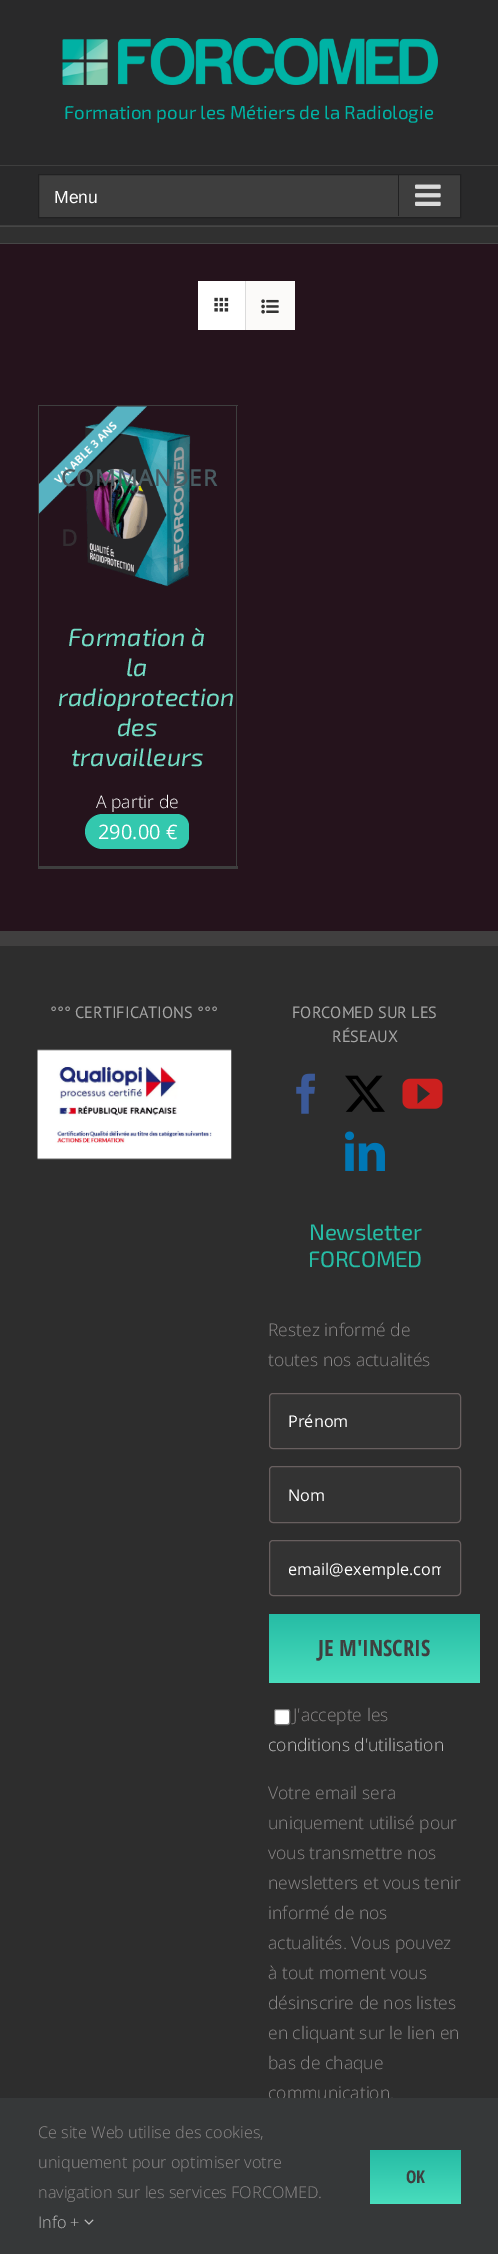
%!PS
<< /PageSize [498 2254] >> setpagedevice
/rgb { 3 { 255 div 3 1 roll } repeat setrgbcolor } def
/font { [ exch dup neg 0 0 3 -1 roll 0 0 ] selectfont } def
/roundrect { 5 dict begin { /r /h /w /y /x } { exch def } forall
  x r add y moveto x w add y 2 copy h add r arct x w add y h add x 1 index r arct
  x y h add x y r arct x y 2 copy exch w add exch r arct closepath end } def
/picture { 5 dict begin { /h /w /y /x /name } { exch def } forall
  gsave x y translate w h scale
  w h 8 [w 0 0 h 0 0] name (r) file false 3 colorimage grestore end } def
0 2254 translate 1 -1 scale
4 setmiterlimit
37 19 28 rgb
0 0 498 2254 rectfill
41 41 42 rgb
0 0 498 165 rectfill
62 62 62 rgb
0 165 498 1 rectfill
(img/1.rgb) 62 38 376 47 picture
41 41 42 rgb
0 166 498 59 rectfill
62 62 62 rgb
0 225 498 1 rectfill
38.5 174.5 moveto 460.5 174.5 lineto 460.5 217.5 lineto 38.5 217.5 lineto closepath gsave fill grestore
33 33 34 rgb
stroke
398 175 1 41 rectfill
(img/2.rgb) 415 184 26 22 picture
[
  [0 227 498 16 48 48 48]
  [0 226 498 1 70 70 70]
  [0 243 498 1 70 70 70]
  [198 281 47 49 255 255 255]
  [245 281 1 49 219 219 219]
] { aload pop rgb rectfill } forall
(img/3.rgb) 214 297 15 15 picture
251 250 249 rgb
246 281 49 49 rectfill
(img/4.rgb) 261 299 18 15 picture
[
  [38 405 200 1 62 62 62]
  [236 405 1 464 62 62 62]
  [38 866 200 3 62 62 62]
  [38 405 1 464 62 62 62]
] { aload pop rgb rectfill } forall
(img/5.rgb) 38 406 153 181 picture
51 200 174 rgb
102.5 814 moveto 165 814 lineto 165 849 lineto 102.5 849 lineto 93 849 85 841 85 831.5 curveto 85 822 93 814 102.5 814 curveto closepath fill
165 814 moveto 177 814 lineto 183.5 814 189 819.5 189 826 curveto 189 837 lineto 189 843.5 183.5 849 177 849 curveto 165 849 lineto closepath fill
45 45 45 rgb
0 946 498 1152 rectfill
64 63 63 rgb
0 931 498 15 rectfill
(img/6.rgb) 37 1049 195 111 picture
(img/7.rgb) 296 1073 19 41 picture
(img/8.rgb) 345 1075 40 37 picture
(img/9.rgb) 402 1078 41 31 picture
(img/10.rgb) 345 1131 40 40 picture
51 51 51 rgb
269.5 1393.5 191 55 3.5 roundrect gsave fill grestore
104 95 95 rgb
stroke
51 51 51 rgb
269.5 1466.5 191 56 3.5 roundrect gsave fill grestore
104 95 95 rgb
stroke
51 51 51 rgb
269.5 1540.5 191 55 3.5 roundrect gsave fill grestore
104 95 95 rgb
stroke
gsave 269 1614 211 69 2.5 roundrect clip newpath
<< /ShadingType 2 /ColorSpace /DeviceRGB /Coords [374 1614 374 1683] /Extend [true true] /Function << /FunctionType 2 /Domain [0 1] /C0 [0.149 0.737 0.647] /C1 [0.286 0.867 0.741] /N 1 >> >> shfill grestore
255 255 255 rgb
274.5 1709.5 15 15 2 roundrect gsave fill grestore
118 118 118 rgb
stroke
/Exo2-Regular 18.75 font
0 179 165 rgb
64 119 moveto (Formation pour les Métiers de la Radiologie) show
/LiberationSans-Regular 17.5 font
255 255 255 rgb
54 203 moveto (Menu) show
/OpenSans-Bold 22.5 font
73 92 98 rgb
61 486 moveto 1.25 0 (COMMANDER) ashow
51 46 50 rgb
61 546 moveto 1.25 0 (D) ashow
/Exo2-Italic 25 font
115 221 198 rgb
[
  [(Formation à) 68 646]
  [(la) 126 676]
  [(radioprotection) 58 706]
  [(des) 117 736]
  [(travailleurs) 71 766]
] { aload pop moveto show } forall
/OpenSans-Light 17.5 font
255 255 255 rgb
96 808 moveto (A partir de) show
/OpenSans-Regular 20 font
98 839 moveto (290.00 €) show
/PTSans-Regular 16.25 font
165 165 165 rgb
[
  [(°°° CERTIFICATIONS °°°) 50 1018]
  [(FORCOMED SUR LES) 292 1018]
  [(RÉSEAUX) 332 1042]
] { aload pop moveto show } forall
/Exo2-Regular 22.5 font
38 188 165 rgb
309 1240 moveto -0.25 0 (Newsletter) ashow
308 1267 moveto -0.25 0 (FORCOMED) ashow
/OpenSans-Light 17.5 font
140 137 137 rgb
268 1336 moveto (Restez informé de) show
268 1366 moveto (toutes nos actualités) show
/OpenSans-Regular 16.25 font
255 255 255 rgb
288 1427 moveto (Prénom) show
288 1501 moveto (Nom) show
gsave
289 1558 152 22 rectclip
288 1575 moveto (email@exemple.com) show
grestore
/OpenSansCondensed-Bold 22.5 font
63 63 63 rgb
318 1656 moveto (JE M'INSCRIS) show
/OpenSans-Light 17.5 font
140 137 137 rgb
293 1721 moveto (J'accepte les) show
191 191 191 rgb
268 1751 moveto (conditions d'utilisation) show
140 137 137 rgb
[
  [(Votre email sera) 268 1799]
  [(uniquement utilisé pour) 268 1829]
  [(vous transmettre nos) 268 1859]
  [(newsletters et vous tenir) 268 1889]
  [(informé de nos) 268 1919]
  [(actualités. Vous pouvez) 268 1949]
  [(à tout moment vous) 268 1979]
  [(désinscrire de nos listes) 268 2009]
  [(en cliquant sur le lien en) 268 2039]
  [(bas de chaque) 268 2069]
  [(communication.) 268 2099]
] { aload pop moveto show } forall
54 56 57 rgb
0 2098 498 156 rectfill
/OpenSans-Light 16.25 font
140 137 137 rgb
[
  [(Ce site Web utilise des cookies,) 38 2138]
  [(uniquement pour optimiser votre) 38 2168]
  [(navigation sur les services FORCOMED.) 38 2198]
] { aload pop moveto show } forall
191 191 191 rgb
38 2228 moveto (Info +) show
(img/11.rgb) 84 2219 10 6 picture
gsave 370 2150 91 54 2.5 roundrect clip newpath
<< /ShadingType 2 /ColorSpace /DeviceRGB /Coords [416 2150 416 2204] /Extend [true true] /Function << /FunctionType 2 /Domain [0 1] /C0 [0.149 0.737 0.647] /C1 [0.286 0.867 0.741] /N 1 >> >> shfill grestore
/OpenSansCondensed-Bold 17.5 font
63 63 63 rgb
406 2183 moveto (OK) show
showpage
